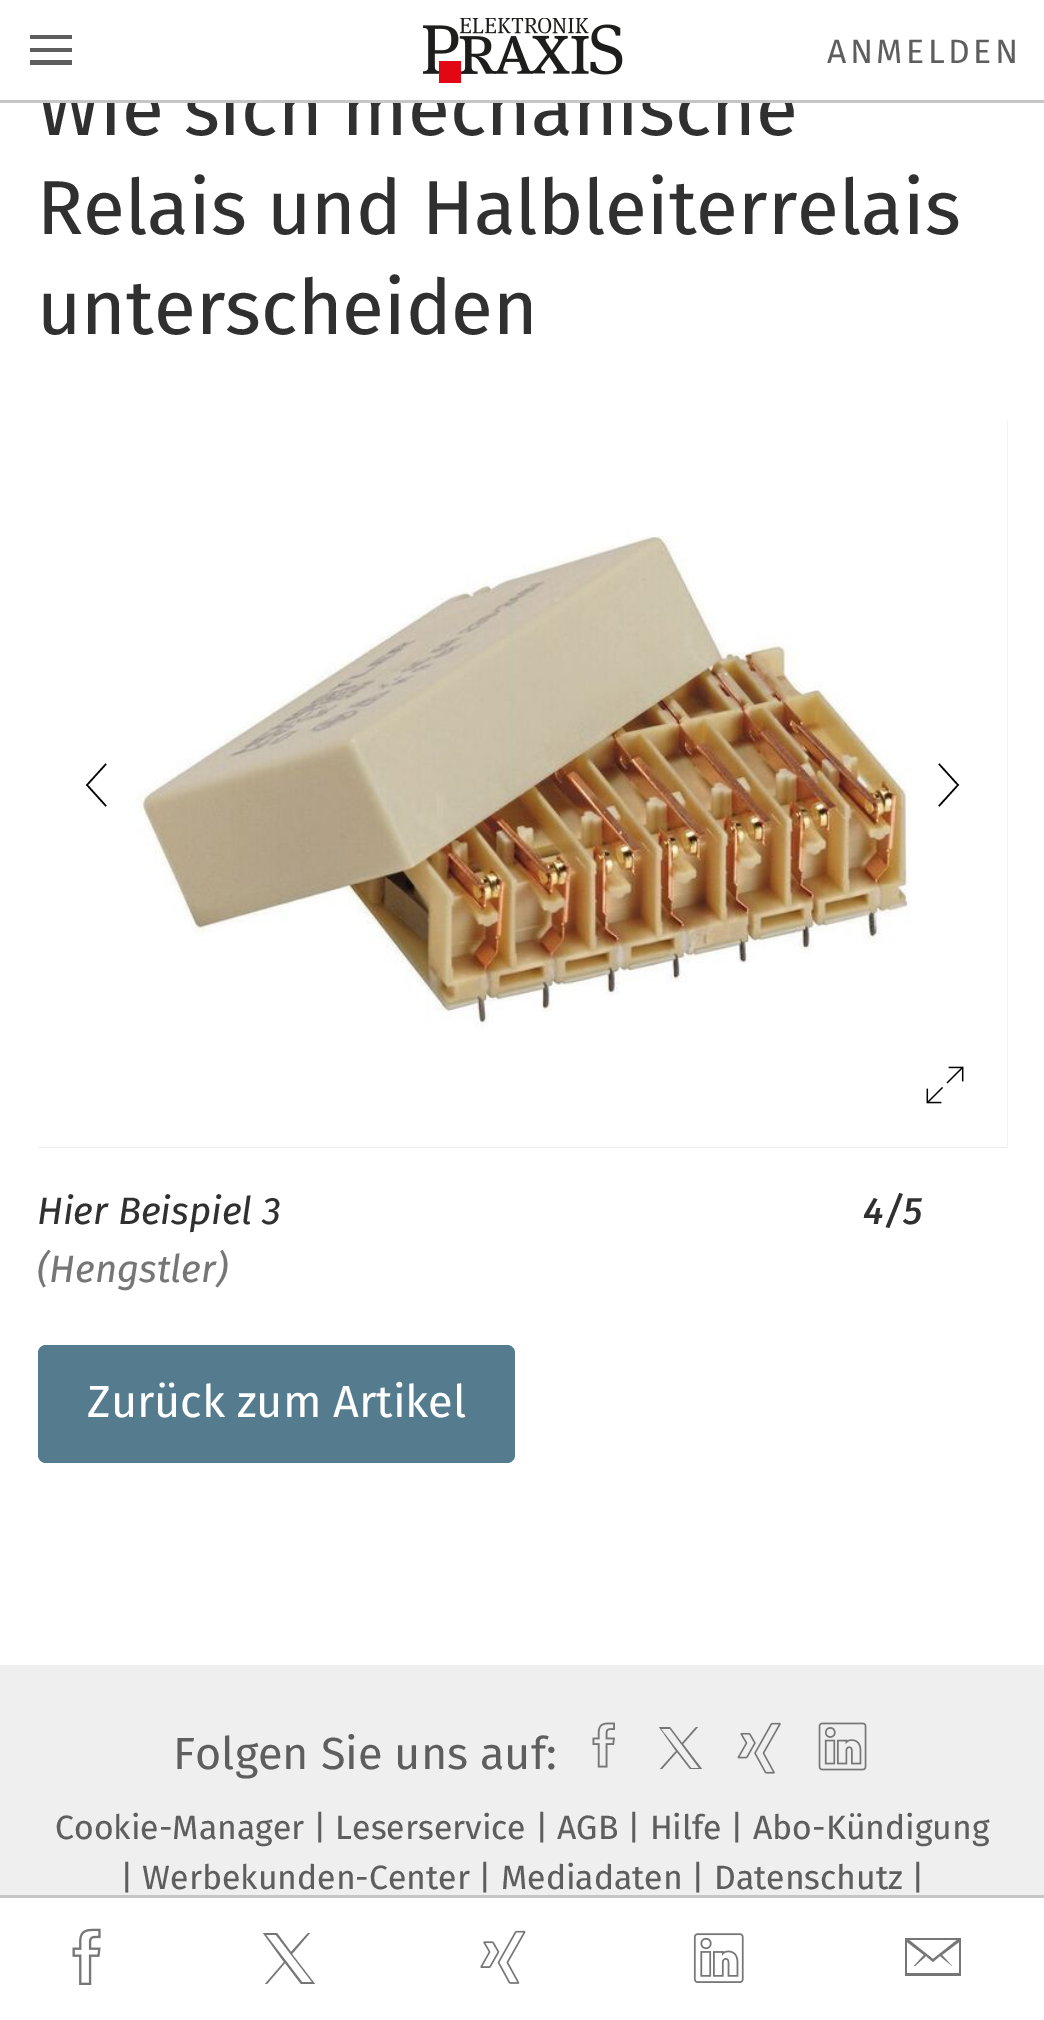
%!PS
<< /PageSize [1044 2020] >> setpagedevice
/rgb { 3 { 255 div 3 1 roll } repeat setrgbcolor } def
/font { [ exch dup neg 0 0 3 -1 roll 0 0 ] selectfont } def
/roundrect { 5 dict begin { /r /h /w /y /x } { exch def } forall
  x r add y moveto x w add y 2 copy h add r arct x w add y h add x 1 index r arct
  x y h add x y r arct x y 2 copy exch w add exch r arct closepath end } def
/picture { 5 dict begin { /h /w /y /x /name } { exch def } forall
  gsave x y translate w h scale
  w h 8 [w 0 0 h 0 0] name (r) file false 3 colorimage grestore end } def
0 2020 translate 1 -1 scale
4 setmiterlimit
255 255 255 rgb
0 0 1044 2020 rectfill
94 94 94 rgb
30 52 moveto 30 48 lineto 72 48 lineto 72 52 lineto closepath 30 39 moveto 30 35 lineto 72 35 lineto 72 39 lineto closepath 30 65 moveto 30 60 lineto 72 60 lineto 72 65 lineto closepath fill
239 239 239 rgb
38 420 970 728 rectfill
(img/2.rgb) 38 420 970 727 picture
gsave
63 748 75 75 rectclip
255 255 255 rgb
100 822 moveto 121 822 138 806 138 785 curveto 138 764 121 748 100 748 curveto 79 748 62 764 62 785 curveto 62 806 79 822 100 822 curveto fill
grestore
0 0 0 rgb
1.5 setlinewidth
106 764 moveto 87 785 lineto 106 806 lineto stroke
255 255 255 rgb
945 748 moveto 924 748 908 764 908 785 curveto 908 806 924 822 945 822 curveto 966 822 982 806 982 785 curveto 982 764 966 748 945 748 curveto fill
0 0 0 rgb
939 806 moveto 958 785 lineto 939 764 lineto stroke
(img/3.rgb) 926 1066 38 38 picture
84 124 142 rgb
38 1345 477 118 8 roundrect fill
198 198 198 rgb
0 1895 1044 3 rectfill
(img/4.rgb) 72 1928 29 57 picture
118 118 118 rgb
265 1984 moveto 267 1984 lineto 285 1963 lineto 301 1984 lineto 315 1984 lineto 292 1954 lineto 310 1933 lineto 308 1933 lineto 291 1952 lineto 277 1933 lineto 263 1933 lineto 284 1962 lineto closepath 266 1935 moveto 276 1935 lineto 312 1982 lineto 302 1982 lineto closepath fill
(img/5.rgb) 480 1930 46 54 picture
(img/6.rgb) 693 1933 51 50 picture
905 1938 moveto 961 1938 lineto 961 1976 lineto 905 1976 lineto closepath 933 1959 moveto 957 1940 lineto 909 1940 lineto closepath 907 1973 moveto 959 1973 lineto 959 1942 lineto 942 1955 lineto 952 1966 lineto 940 1956 lineto 933 1962 lineto 926 1956 lineto 915 1966 lineto 914 1966 lineto 924 1955 lineto 907 1942 lineto closepath fill
239 239 239 rgb
0 1665 1044 230 rectfill
(img/7.rgb) 592 1722 23 46 picture
118 118 118 rgb
660 1769 moveto 662 1769 lineto 677 1752 lineto 690 1769 lineto 702 1769 lineto 683 1744 lineto 698 1727 lineto 696 1727 lineto 682 1743 lineto 670 1727 lineto 659 1727 lineto 676 1751 lineto closepath 661 1729 moveto 670 1729 lineto 699 1768 lineto 691 1768 lineto closepath fill
(img/8.rgb) 737 1722 44 52 picture
(img/9.rgb) 818 1722 49 49 picture
/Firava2-Regular 33.75 font
94 94 94 rgb
827 63 moveto 3.5 0 (ANMELDEN) ashow
/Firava-Regular 76.5 font
48 48 48 rgb
37 135 moveto (Wie sich mechanische) show
255 255 255 rgb
38 75 752 25 rectfill
(img/1.rgb) 423 18 200 65 picture
198 198 198 rgb
0 100 1044 3 rectfill
48 48 48 rgb
37 234 moveto (Relais und Halbleiterrelais) show
37 334 moveto (unterscheiden) show
/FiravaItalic-Italic 38.25 font
37 1224 moveto (Hier Beispiel 3) show
118 118 118 rgb
37 1282 moveto (\(Hengstler\)) show
/FiravaItalic-MediumItalic 38.25 font
48 48 48 rgb
863 1224 moveto (4/5) show
/Firava-Regular 45 font
255 255 255 rgb
87 1417 moveto (Zurück zum Artikel) show
/Firava2-Regular 45 font
94 94 94 rgb
173 1769 moveto (Folgen Sie uns auf:) show
/Firava-Regular 33.75 font
55 1839 moveto (Cookie-Manager | Leserservice | AGB | Hilfe | Abo-Kündigung) show
120 1889 moveto (| Werbekunden-Center | Mediadaten | Datenschutz |) show
showpage
